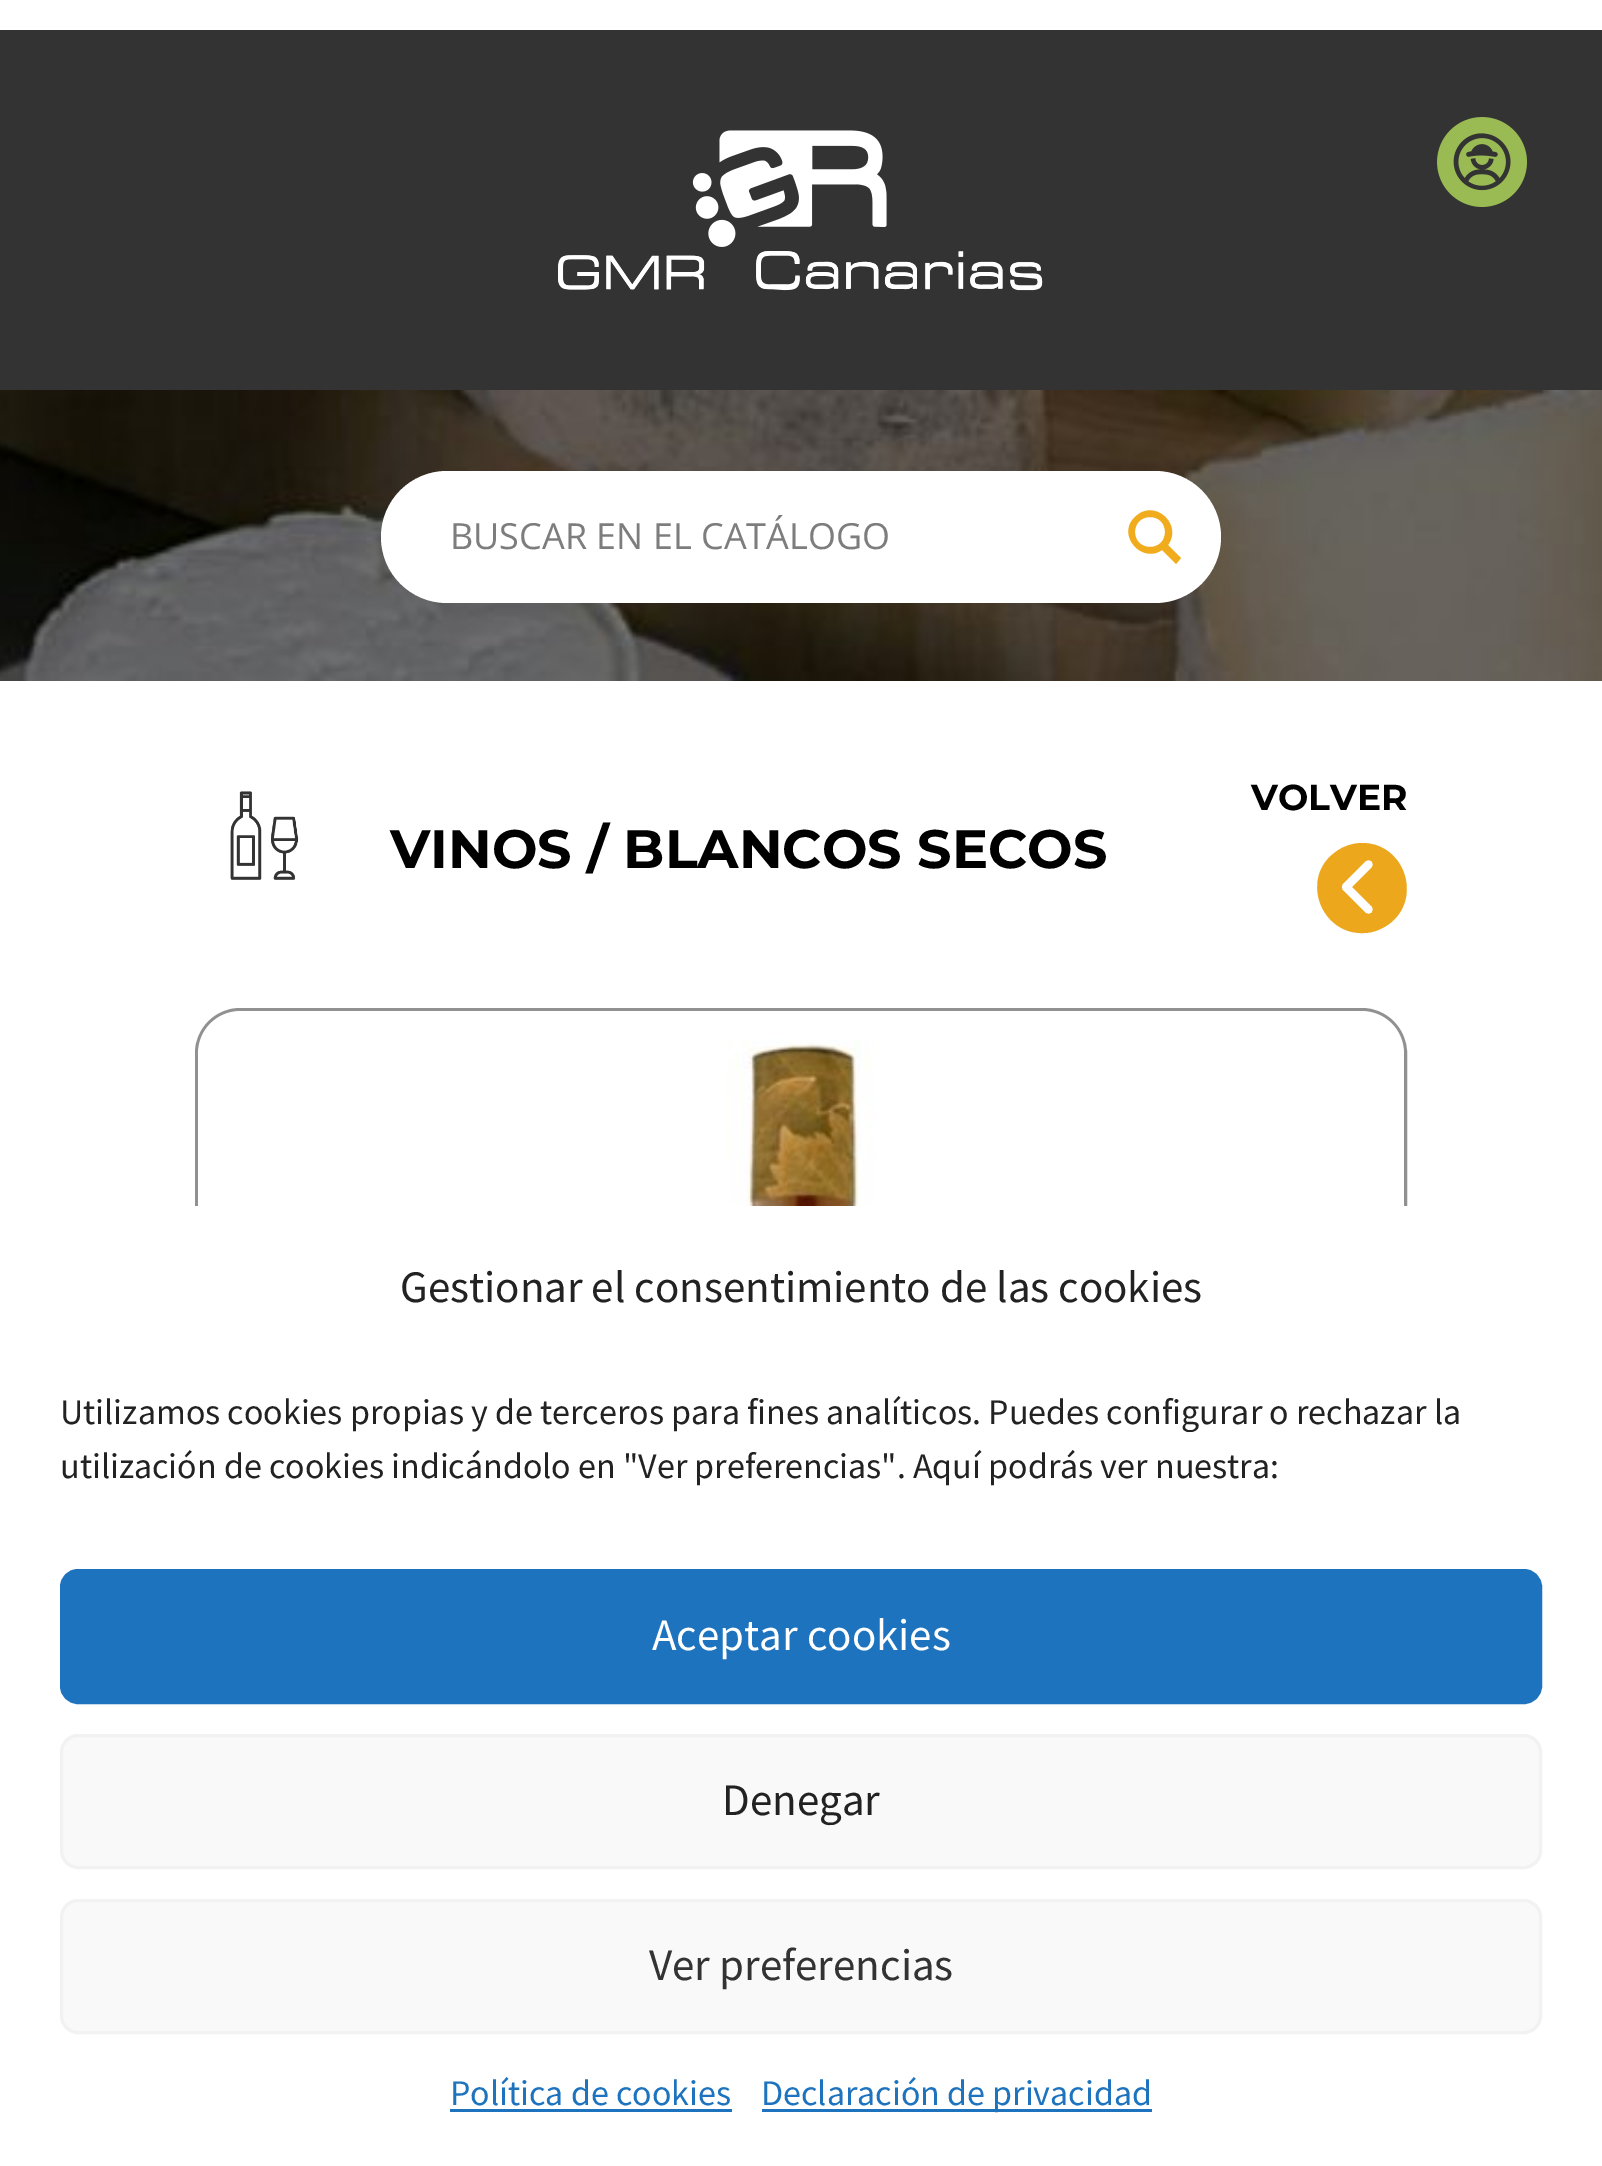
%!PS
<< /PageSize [1602 2166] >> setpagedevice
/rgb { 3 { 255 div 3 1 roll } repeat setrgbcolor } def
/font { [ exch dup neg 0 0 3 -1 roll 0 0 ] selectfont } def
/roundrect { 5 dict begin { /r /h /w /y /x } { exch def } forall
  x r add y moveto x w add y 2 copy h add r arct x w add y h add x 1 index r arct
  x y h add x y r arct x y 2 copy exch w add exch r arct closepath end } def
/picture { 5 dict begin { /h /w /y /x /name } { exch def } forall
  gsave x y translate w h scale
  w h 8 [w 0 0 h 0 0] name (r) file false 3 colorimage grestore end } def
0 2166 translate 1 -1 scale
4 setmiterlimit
255 255 255 rgb
0 0 1602 2166 rectfill
51 51 51 rgb
0 30 1602 360 rectfill
(img/1.rgb) 558 130 485 161 picture
(img/2.rgb) 1437 117 90 90 picture
(img/3.rgb) 0 390 1602 291 picture
255 255 255 rgb
381 471 840 132 66 roundrect fill
241 172 29 rgb
1181 558 moveto 1168 545 lineto 1183 524 1154 498 1135 517 curveto 1116 535 1142 564 1162 550 curveto 1176 564 lineto closepath 1135 532 moveto 1135 512 1165 512 1165 532 curveto 1165 552 1135 552 1135 532 curveto closepath fill
236 167 29 rgb
1362 843 moveto 1405 843 1423 899 1389 924 curveto 1382 929 1373 933 1364 933 curveto 1320 935 1299 876 1337 851 curveto 1344 846 1353 843 1362 843 curveto eofill
255 255 255 rgb
8.2 setlinewidth
1 setlinecap
1 setlinejoin
1368.5 864.5 moveto 1346 887 lineto 1368.5 909.5 moveto 1346 887 lineto stroke
(img/4.rgb) 230 791 69 89 picture
145 145 145 rgb
3 setlinewidth
0 setlinecap
0 setlinejoin
196.5 1009.5 1209 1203 43.5 roundrect stroke
(img/5.rgb) 198 1011 1206 195 picture
255 255 255 rgb
0 1206 1602 960 36 roundrect fill
30 115 190 rgb
61.5 1570.5 1479 132 16.5 roundrect gsave fill grestore
stroke
249 249 249 rgb
61.5 1735.5 1479 132 16.5 roundrect gsave fill grestore
242 242 242 rgb
stroke
249 249 249 rgb
61.5 1900.5 1479 132 16.5 roundrect gsave fill grestore
242 242 242 rgb
stroke
30 115 190 rgb
450 2109 282 3 rectfill
762 2109 390 3 rectfill
/OpenSans-Regular 36 font
125 125 125 rgb
450 549 moveto (BUSCAR EN EL CATÁLOGO) show
/Montserrat-Bold 36 font
0 0 0 rgb
1251 810 moveto (VOLVER) show
/Montserrat-Bold 54 font
390 868 moveto (VINOS / BLANCOS SECOS) show
/SourceSansPro-Regular 45 font
34 34 34 rgb
400 1302 moveto (Gestionar el consentimiento de las cookies) show
/SourceSansPro-Regular 36 font
60 1424 moveto (Utilizamos cookies propias y de terceros para fines analíticos. Puedes configurar o rechazar la) show
60 1478 moveto (utilización de cookies indicándolo en "Ver preferencias". Aquí podrás ver nuestra:) show
/SourceSansPro-Regular 45 font
255 255 255 rgb
652 1650 moveto (Aceptar cookies) show
34 34 34 rgb
722 1815 moveto (Denegar) show
51 51 51 rgb
649 1980 moveto (Ver preferencias) show
/SourceSansPro-Regular 36 font
30 115 190 rgb
450 2105 moveto (Política de cookies) show
761 2105 moveto (Declaración de privacidad) show
showpage
